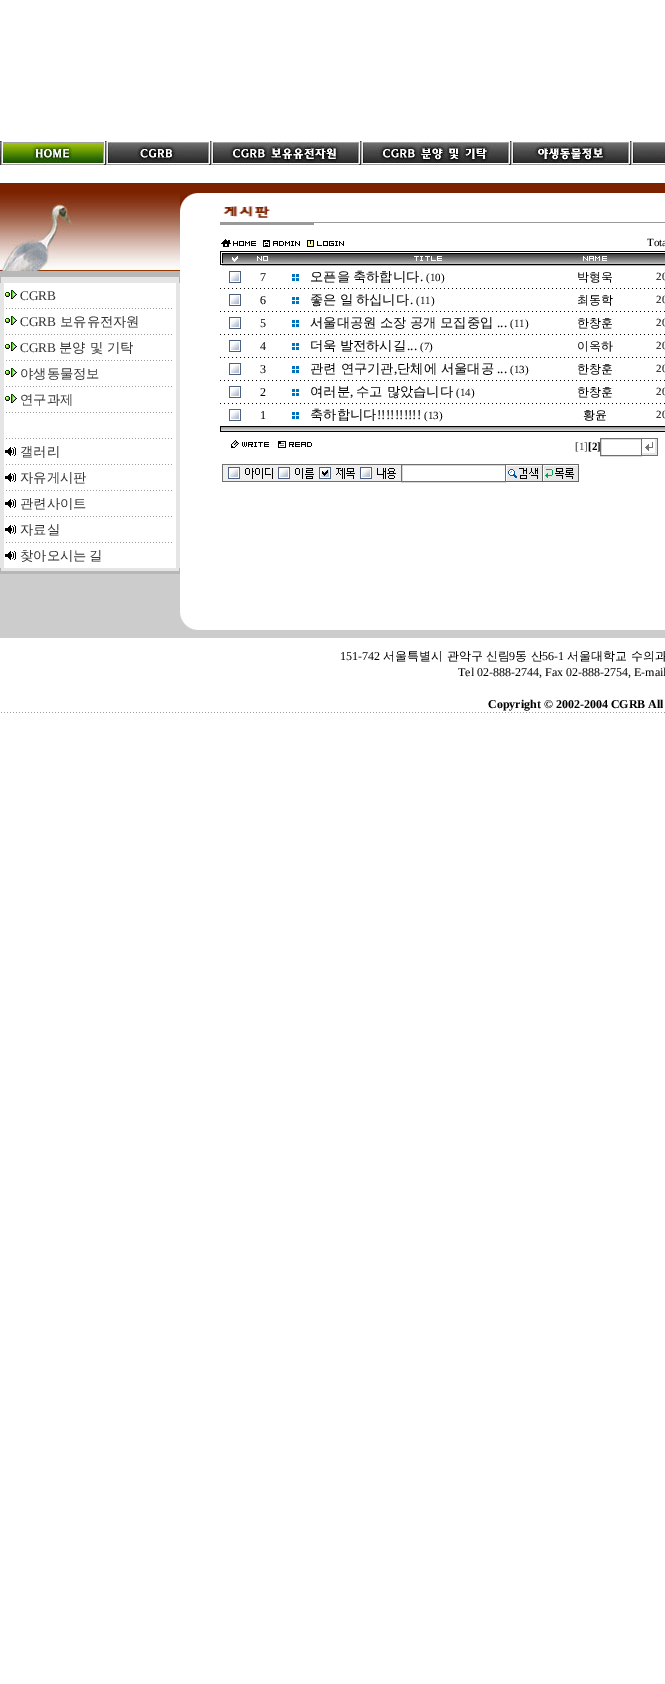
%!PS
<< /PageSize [665 1684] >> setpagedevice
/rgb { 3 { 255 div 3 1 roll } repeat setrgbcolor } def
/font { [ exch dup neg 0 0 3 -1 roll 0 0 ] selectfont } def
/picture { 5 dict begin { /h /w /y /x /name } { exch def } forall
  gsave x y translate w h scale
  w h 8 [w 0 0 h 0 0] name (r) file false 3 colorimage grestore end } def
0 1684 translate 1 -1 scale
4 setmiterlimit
255 255 255 rgb
0 0 665 1684 rectfill
(img/1.rgb) 0 141 105 24 picture
(img/2.rgb) 105 141 105 24 picture
(img/3.rgb) 210 141 150 24 picture
(img/4.rgb) 360 141 150 24 picture
(img/5.rgb) 510 141 120 24 picture
(img/6.rgb) 630 141 35 24 picture
124 34 0 rgb
0 183 665 10 rectfill
(img/7.rgb) 180 193 20 20 picture
204 204 204 rgb
0 574 180 56 rectfill
(img/8.rgb) 0 193 180 78 picture
(img/9.rgb) 0 271 180 12 picture
229 229 229 rgb
0 283 4 285 rectfill
(img/10.rgb) 5 290 12 9 picture
(img/11.rgb) 6 308 166 1 picture
(img/10.rgb) 5 316 12 9 picture
(img/11.rgb) 6 334 166 1 picture
(img/10.rgb) 5 342 12 9 picture
(img/11.rgb) 6 360 166 1 picture
(img/10.rgb) 5 368 12 9 picture
(img/11.rgb) 6 386 166 1 picture
(img/10.rgb) 5 394 12 9 picture
(img/11.rgb) 6 412 166 1 picture
(img/11.rgb) 6 438 166 1 picture
(img/12.rgb) 5 447 11 9 picture
(img/11.rgb) 6 464 166 1 picture
(img/12.rgb) 5 473 11 9 picture
(img/11.rgb) 6 490 166 1 picture
(img/12.rgb) 5 499 11 9 picture
(img/11.rgb) 6 516 166 1 picture
(img/12.rgb) 5 525 11 9 picture
(img/11.rgb) 6 542 166 1 picture
(img/12.rgb) 5 551 11 9 picture
176 283 4 285 rectfill
(img/13.rgb) 0 568 180 6 picture
(img/14.rgb) 220 206 94 19 picture
153 153 153 rgb
314 222 351 1 rectfill
(img/15.rgb) 221 239 35 8 picture
(img/16.rgb) 263 240 37 7 picture
(img/17.rgb) 307 240 37 7 picture
(img/18.rgb) 220 251 5 15 picture
(img/19.rgb) 225 251 20 15 picture
(img/20.rgb) 232 256 6 6 picture
(img/21.rgb) 245 251 35 15 picture
(img/22.rgb) 257 256 11 5 picture
(img/23.rgb) 280 251 30 15 picture
(img/24.rgb) 310 251 235 15 picture
(img/25.rgb) 414 256 28 5 picture
(img/26.rgb) 545 251 100 15 picture
(img/27.rgb) 583 256 24 5 picture
(img/19.rgb) 645 251 20 15 picture
(img/28.rgb) 229 271 12 12 picture
(img/29.rgb) 292 274 7 7 picture
(img/30.rgb) 220 288 445 1 picture
(img/28.rgb) 229 294 12 12 picture
(img/29.rgb) 292 297 7 7 picture
(img/30.rgb) 220 311 445 1 picture
(img/28.rgb) 229 317 12 12 picture
(img/29.rgb) 292 320 7 7 picture
(img/30.rgb) 220 334 445 1 picture
(img/28.rgb) 229 340 12 12 picture
(img/29.rgb) 292 343 7 7 picture
(img/30.rgb) 220 357 445 1 picture
(img/28.rgb) 229 363 12 12 picture
(img/29.rgb) 292 366 7 7 picture
(img/30.rgb) 220 380 445 1 picture
(img/28.rgb) 229 386 12 12 picture
(img/29.rgb) 292 389 7 7 picture
(img/30.rgb) 220 403 445 1 picture
(img/28.rgb) 229 409 12 12 picture
(img/29.rgb) 292 412 7 7 picture
(img/31.rgb) 220 426 5 6 picture
(img/32.rgb) 225 426 440 6 picture
(img/33.rgb) 231 440 38 8 picture
(img/34.rgb) 278 441 34 7 picture
111 111 111 rgb
600.5 438.5 41 17 rectstroke
(img/35.rgb) 642 438 16 18 picture
[
  [223 465 178 16 239 239 239]
  [222 464 179 1 111 111 111]
  [222 481 179 1 111 111 111]
  [222 464 1 18 111 111 111]
] { aload pop rgb rectfill } forall
(img/28.rgb) 228 467 12 12 picture
(img/36.rgb) 245 468 28 11 picture
(img/28.rgb) 278 467 12 12 picture
(img/37.rgb) 295 468 19 11 picture
(img/38.rgb) 319 467 12 12 picture
(img/39.rgb) 336 468 19 11 picture
(img/28.rgb) 360 467 12 12 picture
(img/40.rgb) 377 468 19 11 picture
401.5 464.5 104 17 rectstroke
(img/41.rgb) 506 464 37 18 picture
(img/42.rgb) 543 464 36 18 picture
(img/43.rgb) 180 613 17 17 picture
204 204 204 rgb
0 630 665 8 rectfill
(img/44.rgb) 1 712 664 1 picture
/LiberationSerif-Regular 13.3 font
51 51 51 rgb
20 300 moveto (CGRB) show
20 326 moveto (CGRB) show
/WenQuanYiZenHei-Medium 13.3 font
60 326 moveto (보유유전자원) show
/LiberationSerif-Regular 13.3 font
20 352 moveto (CGRB) show
/WenQuanYiZenHei-Medium 13.3 font
[
  [(분양 및 기탁) 59 352]
  [(야생동물정보) 20 378]
  [(연구과제) 20 404]
  [(갤러리) 20 456]
  [(자유게시판) 20 482]
  [(관련사이트) 20 508]
  [(자료실) 20 534]
] { aload pop moveto show } forall
20 560 moveto -1 0 32 (찾아오시는 길) widthshow
/LiberationSerif-Regular 11 font
0 0 0 rgb
647 246 moveto (Tota) show
/LiberationSerif-Regular 12 font
260 281 moveto (7) show
/WenQuanYiZenHei-Medium 13.3 font
310 281 moveto -1 0 32 (오픈을 축하합니다) widthshow
/LiberationSerif-Regular 13.3 font
420 281 moveto (.) show
/LiberationSerif-Regular 11 font
426 281 moveto (\(10\)) show
/WenQuanYiZenHei-Medium 12 font
577 281 moveto (박형욱) show
/LiberationSerif-Regular 11 font
656 280 moveto (20) show
/LiberationSerif-Regular 12 font
260 304 moveto (6) show
/WenQuanYiZenHei-Medium 13.3 font
310 304 moveto -1 0 32 (좋은 일 하십니다) widthshow
/LiberationSerif-Regular 13.3 font
410 304 moveto (.) show
/LiberationSerif-Regular 11 font
416 304 moveto (\(11\)) show
/WenQuanYiZenHei-Medium 12 font
577 304 moveto (최동학) show
/LiberationSerif-Regular 11 font
656 303 moveto (20) show
/LiberationSerif-Regular 12 font
260 327 moveto (5) show
/WenQuanYiZenHei-Medium 13.3 font
310 327 moveto -0.5 0 32 (서울대공원 소장 공개 모집중입) widthshow
/LiberationSerif-Regular 13.3 font
497 327 moveto (...) show
/LiberationSerif-Regular 11 font
510 327 moveto (\(11\)) show
/WenQuanYiZenHei-Medium 12 font
577 327 moveto (한창훈) show
/LiberationSerif-Regular 11 font
656 326 moveto (20) show
/LiberationSerif-Regular 12 font
260 350 moveto (4) show
/WenQuanYiZenHei-Medium 13.3 font
310 350 moveto -1 0 32 (더욱 발전하시길) widthshow
/LiberationSerif-Regular 13.3 font
407 350 moveto (...) show
/LiberationSerif-Regular 11 font
420 350 moveto (\(7\)) show
/WenQuanYiZenHei-Medium 12 font
577 350 moveto (이옥하) show
/LiberationSerif-Regular 11 font
656 349 moveto (20) show
/LiberationSerif-Regular 12 font
260 373 moveto (3) show
/WenQuanYiZenHei-Medium 13.3 font
310 373 moveto (관련 연구기관) show
/LiberationSerif-Regular 13.3 font
394 373 moveto (,) show
/WenQuanYiZenHei-Medium 13.3 font
397 373 moveto (단체에 서울대공) show
/LiberationSerif-Regular 13.3 font
497 373 moveto (...) show
/LiberationSerif-Regular 11 font
510 373 moveto (\(13\)) show
/WenQuanYiZenHei-Medium 12 font
577 373 moveto (한창훈) show
/LiberationSerif-Regular 11 font
656 372 moveto (20) show
/LiberationSerif-Regular 12 font
260 396 moveto (2) show
/WenQuanYiZenHei-Medium 13.3 font
310 396 moveto (여러분) show
/LiberationSerif-Regular 13.3 font
350 396 moveto (,) show
/WenQuanYiZenHei-Medium 13.3 font
356 396 moveto (수고 많았습니다) show
/LiberationSerif-Regular 11 font
456 396 moveto (\(14\)) show
/WenQuanYiZenHei-Medium 12 font
577 396 moveto (한창훈) show
/LiberationSerif-Regular 11 font
656 395 moveto (20) show
/LiberationSerif-Regular 12 font
260 419 moveto (1) show
/WenQuanYiZenHei-Medium 13.3 font
310 419 moveto (축하합니다) show
/LiberationSerif-Regular 13.3 font
377 419 moveto (!!!!!!!!!!) show
/LiberationSerif-Regular 11 font
424 419 moveto (\(13\)) show
/WenQuanYiZenHei-Medium 12 font
583 419 moveto (황윤) show
/LiberationSerif-Regular 11 font
656 418 moveto (20) show
51 51 51 rgb
575 450 moveto ([1]) show
/LiberationSerif-Bold 11 font
0 0 0 rgb
588 450 moveto ([2]) show
/LiberationSerif-Regular 12 font
340 660 moveto (151-742) show
/WenQuanYiZenHei-Medium 12 font
383 660 moveto (서울특별시 관악구 신림) show
/LiberationSerif-Regular 12 font
509 660 moveto (9) show
/WenQuanYiZenHei-Medium 12 font
515 660 moveto (동 산) show
/LiberationSerif-Regular 12 font
542 660 moveto (56-1) show
/WenQuanYiZenHei-Medium 12 font
567 660 moveto (서울대학교 수의과) show
/LiberationSerif-Regular 12 font
458 676 moveto (Tel 02-888-2744, Fax 02-888-2754, E-mail) show
/LiberationSerif-Bold 12 font
488 708 moveto (Copyright © 2002-2004 CGRB All) show
showpage
